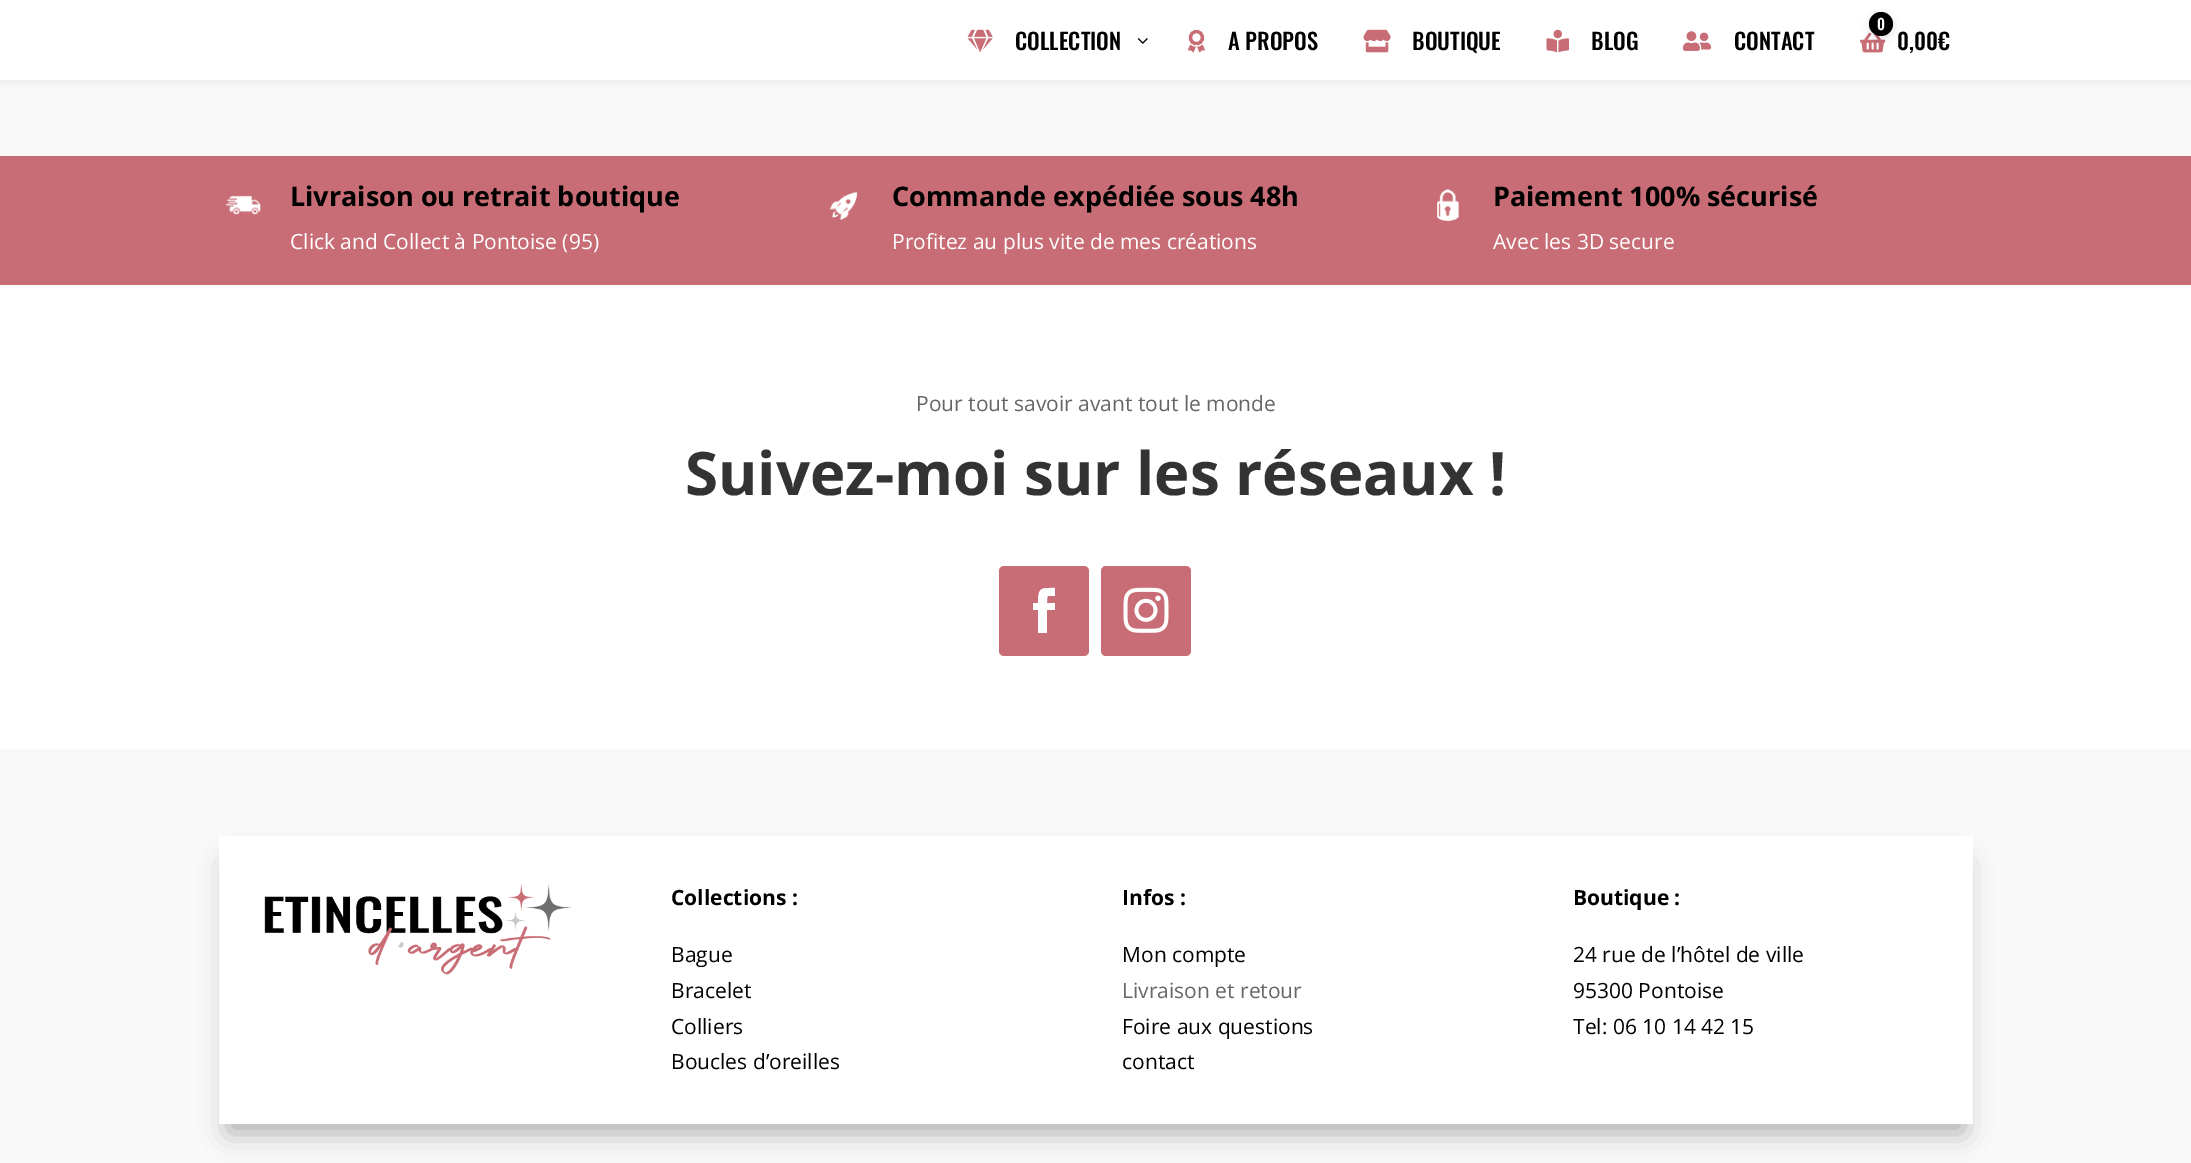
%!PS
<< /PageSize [2191 1163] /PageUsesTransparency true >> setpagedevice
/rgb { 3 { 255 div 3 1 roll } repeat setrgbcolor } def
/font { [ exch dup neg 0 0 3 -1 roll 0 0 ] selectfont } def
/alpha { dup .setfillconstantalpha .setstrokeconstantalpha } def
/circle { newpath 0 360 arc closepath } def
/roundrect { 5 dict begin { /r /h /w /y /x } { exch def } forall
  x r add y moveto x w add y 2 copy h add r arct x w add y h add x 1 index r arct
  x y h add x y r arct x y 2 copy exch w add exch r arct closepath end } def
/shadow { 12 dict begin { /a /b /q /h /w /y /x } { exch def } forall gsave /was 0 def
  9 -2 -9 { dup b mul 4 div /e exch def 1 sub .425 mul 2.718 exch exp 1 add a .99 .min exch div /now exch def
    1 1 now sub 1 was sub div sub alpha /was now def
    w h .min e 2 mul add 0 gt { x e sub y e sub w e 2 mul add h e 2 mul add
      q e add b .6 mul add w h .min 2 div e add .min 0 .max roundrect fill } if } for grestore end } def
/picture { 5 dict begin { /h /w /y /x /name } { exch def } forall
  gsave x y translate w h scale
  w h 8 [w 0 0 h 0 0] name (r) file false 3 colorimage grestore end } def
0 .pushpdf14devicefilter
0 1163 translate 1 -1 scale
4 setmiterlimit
249 249 249 rgb
0 0 2191 1163 rectfill
0 0 0 rgb
0 0 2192 80 0 5 0.1 shadow
255 255 255 rgb
0 0 2191 80 rectfill
(img/1.rgb) 967 29 26 24 picture
(img/2.rgb) 1137 38 11 6 picture
(img/3.rgb) 1188 29 17 24 picture
(img/4.rgb) 1363 29 28 24 picture
(img/5.rgb) 1546 29 23 24 picture
(img/6.rgb) 1683 31 29 20 picture
(img/7.rgb) 1860 32 26 21 picture
0 0 0 rgb
1869 15 24 24 12 4 0.1 shadow
1881 24 12 circle fill
200 109 117 rgb
0 156 2191 129 rectfill
(img/8.rgb) 225 195 36 20 picture
(img/9.rgb) 830 192 27 28 picture
(img/10.rgb) 1437 189 22 32 picture
255 255 255 rgb
0 285 2191 464 rectfill
200 109 117 rgb
999 566 90 90 5 roundrect fill
255 255 255 rgb
1038 633 moveto 1047 633 lineto 1047 610 lineto 1055 610 lineto 1055 603 lineto 1047 603 lineto 1047 594 1047 596 1055 596 curveto 1055 588 lineto 1041 588 1038 587 1038 603 curveto 1033 603 lineto 1033 610 lineto 1038 610 lineto closepath fill
200 109 117 rgb
1101 566 90 90 5 roundrect fill
(img/11.rgb) 1123 587 46 46 picture
0 0 0 rgb
228 863 1736 270 0 13.5 0.3 shadow
255 255 255 rgb
219 836 1754 288 rectfill
(img/12.rgb) 264 883 308 92 picture
/Oswald-Medium 22.5 font
0 0 0 rgb
[
  [(COLLECTION) 1015 50]
  [(A PROPOS) 1228 50]
  [(BOUTIQUE) 1412 50]
  [(BLOG) 1591 50]
  [(CONTACT) 1734 50]
] { aload pop moveto show } forall
/Oswald-Medium 15 font
255 255 255 rgb
1877 30 moveto (0) show
/Oswald-Medium 22.5 font
0 0 0 rgb
1897 50 moveto (0,00€) show
/OpenSans-Bold 27 font
290 206 moveto (Livraison ou retrait boutique) show
/OpenSans-Regular 21 font
255 255 255 rgb
290 249 moveto (Click and Collect à Pontoise \(95\)) show
/OpenSans-Bold 27 font
0 0 0 rgb
892 206 moveto (Commande expédiée sous 48h) show
/OpenSans-Regular 21 font
255 255 255 rgb
892 249 moveto (Profitez au plus vite de mes créations) show
/OpenSans-Bold 27 font
0 0 0 rgb
1493 206 moveto (Paiement 100% sécurisé) show
/OpenSans-Regular 21 font
255 255 255 rgb
1493 249 moveto (Avec les 3D secure) show
102 102 102 rgb
916 411 moveto (Pour tout savoir avant tout le monde) show
/OpenSans-Bold 60 font
51 51 51 rgb
685 495 moveto (Suivez-moi sur les réseaux !) show
/OpenSans-Bold 21 font
0 0 0 rgb
671 905 moveto (Collections :) show
/OpenSans-Regular 21 font
[
  [(Bague) 671 962]
  [(Bracelet) 671 998]
  [(Colliers) 671 1034]
  [(Boucles d’oreilles) 671 1069]
] { aload pop moveto show } forall
/OpenSans-Bold 21 font
1122 905 moveto (Infos :) show
/OpenSans-Regular 21 font
1122 962 moveto (Mon compte) show
102 102 102 rgb
1122 998 moveto (Livraison et retour) show
0 0 0 rgb
1122 1034 moveto (Foire aux questions) show
1122 1069 moveto (contact) show
/OpenSans-Bold 21 font
1573 905 moveto (Boutique :) show
/OpenSans-Regular 21 font
[
  [(24 rue de l’hôtel de ville) 1573 962]
  [(95300 Pontoise) 1573 998]
  [(Tel: 06 10 14 42 15) 1573 1034]
] { aload pop moveto show } forall
.poppdf14devicefilter showpage
